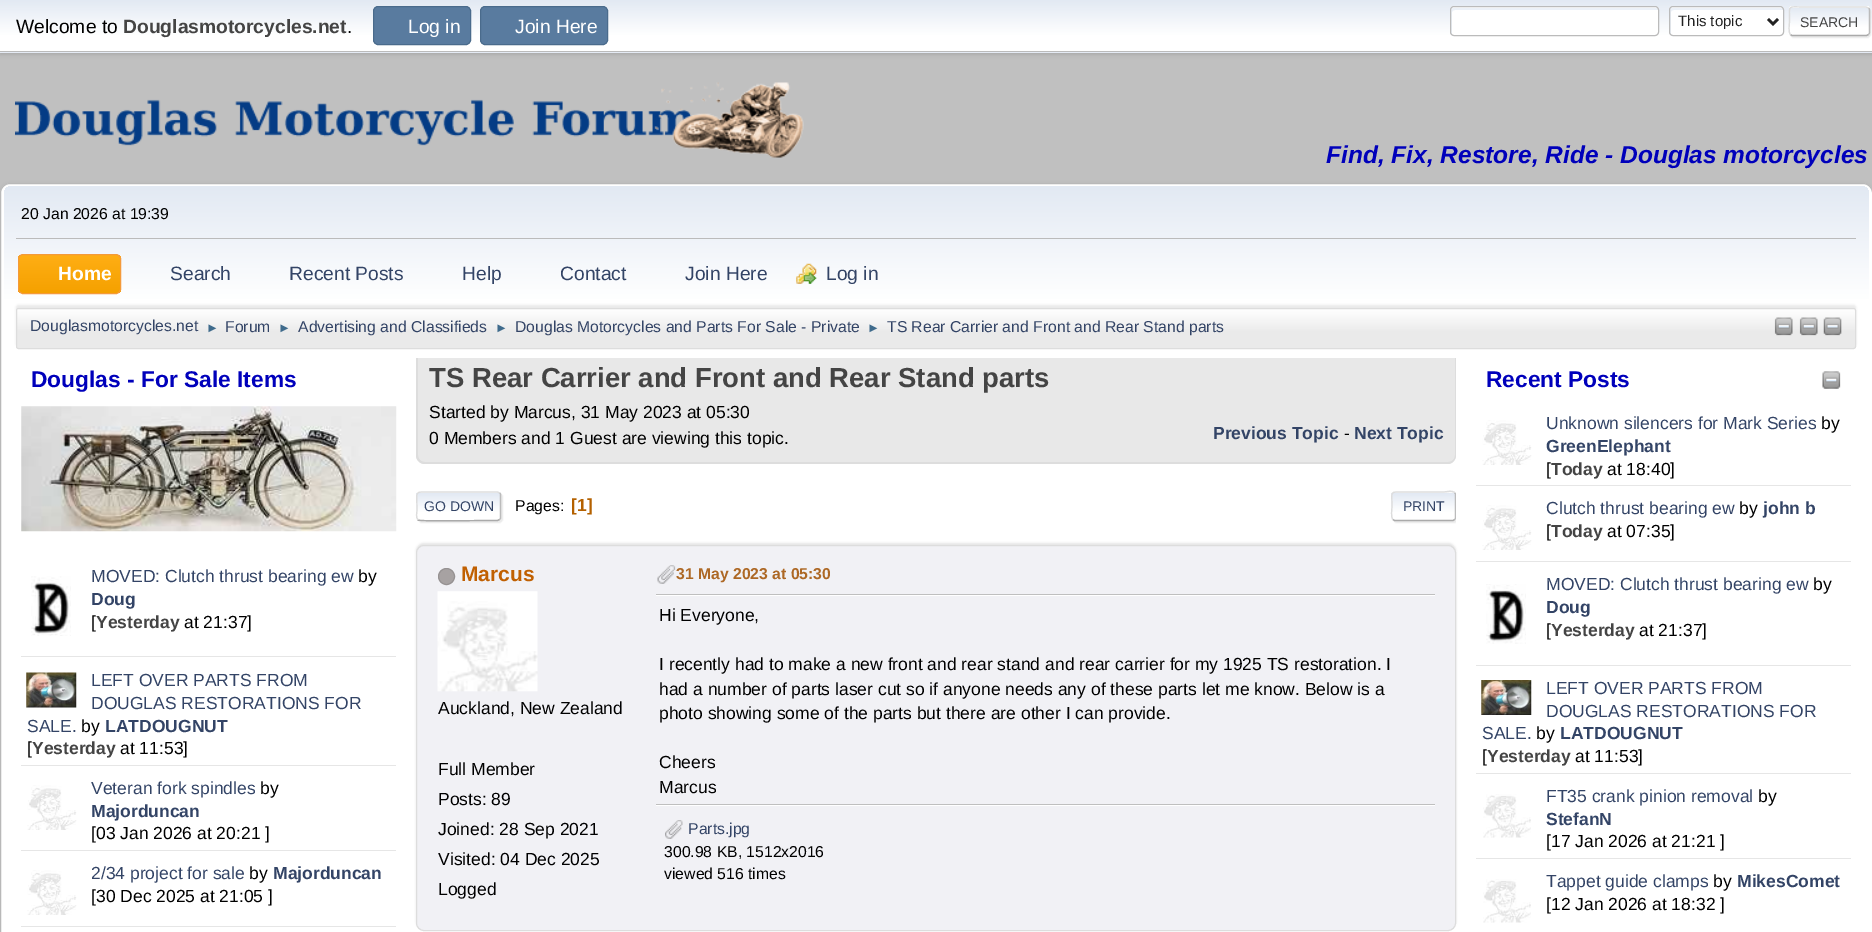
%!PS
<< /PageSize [1872 932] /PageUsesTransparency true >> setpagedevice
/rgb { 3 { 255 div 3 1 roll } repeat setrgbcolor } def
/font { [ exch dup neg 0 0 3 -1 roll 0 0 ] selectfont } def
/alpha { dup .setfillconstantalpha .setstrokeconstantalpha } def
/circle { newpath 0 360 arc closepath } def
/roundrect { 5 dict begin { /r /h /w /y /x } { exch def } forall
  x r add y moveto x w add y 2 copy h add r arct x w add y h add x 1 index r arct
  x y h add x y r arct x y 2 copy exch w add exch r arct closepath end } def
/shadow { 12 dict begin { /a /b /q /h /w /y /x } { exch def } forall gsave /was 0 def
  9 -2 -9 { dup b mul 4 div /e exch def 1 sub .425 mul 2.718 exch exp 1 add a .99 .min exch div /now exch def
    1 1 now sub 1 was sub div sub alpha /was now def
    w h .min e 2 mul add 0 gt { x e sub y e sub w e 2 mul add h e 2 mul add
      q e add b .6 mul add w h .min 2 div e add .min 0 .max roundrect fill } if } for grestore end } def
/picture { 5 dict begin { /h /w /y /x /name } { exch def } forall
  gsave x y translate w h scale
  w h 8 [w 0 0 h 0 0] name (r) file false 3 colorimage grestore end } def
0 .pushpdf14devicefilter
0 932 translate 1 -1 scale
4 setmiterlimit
192 192 192 rgb
0 0 1872 932 rectfill
0 0 0 rgb
0 1 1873 53 0 2.5 0.16 shadow
gsave 0 0 moveto 1872 0 lineto 1872 51 lineto 0 51 lineto closepath clip newpath
<< /ShadingType 2 /ColorSpace /DeviceRGB /Coords [936 0 936 51] /Extend [true true] /Function << /FunctionType 3 /Domain [0 1] /Functions [<< /FunctionType 2 /Domain [0 1] /C0 [0.886 0.914 0.953] /C1 [1 1 1] /N 1 >> << /FunctionType 2 /Domain [0 1] /C0 [1 1 1] /C1 [1 1 1] /N 1 >>] /Bounds [0.7] /Encode [0 1 0 1] >> >> shfill grestore
gsave 0 52 moveto 1872 52 lineto 1872 53 lineto 0 53 lineto closepath clip newpath
<< /ShadingType 2 /ColorSpace /DeviceRGB /Coords [936 51 936 103] /Extend [true true] /Function << /FunctionType 3 /Domain [0 1] /Functions [<< /FunctionType 2 /Domain [0 1] /C0 [0.886 0.914 0.953] /C1 [1 1 1] /N 1 >> << /FunctionType 2 /Domain [0 1] /C0 [1 1 1] /C1 [1 1 1] /N 1 >>] /Bounds [0.7] /Encode [0 1 0 1] >> >> shfill grestore
187 187 187 rgb
0 51 1872 1 rectfill
89 123 159 rgb
373.5 6.5 97 38 4.5 roundrect gsave fill grestore
74 107 140 rgb
stroke
89 123 159 rgb
480.5 6.5 127 38 4.5 roundrect gsave fill grestore
74 107 140 rgb
stroke
255 255 255 rgb
1450 6 209 30 4 roundrect fill
236 241 248 rgb
1455 10 moveto 1656 10 lineto 1658 10 lineto 1658 9 1657 8 1656 8 curveto 1454 8 lineto 1452 8 1451 9 1451 10 curveto 1451 32 lineto 1451 33 1451 34 1452 35 curveto 1452 12 lineto 1452 11 1454 10 1455 10 curveto closepath fill
187 187 187 rgb
1450.5 6.5 208 29 3.5 roundrect stroke
255 255 255 rgb
1669 6 115 30 4 roundrect fill
236 241 248 rgb
1674 10 moveto 1781 10 lineto 1783 10 lineto 1783 9 1782 8 1780 8 curveto 1672 8 lineto 1671 8 1670 9 1670 10 curveto 1670 32 lineto 1670 33 1670 34 1671 35 curveto 1671 12 lineto 1671 11 1672 10 1674 10 curveto closepath fill
187 187 187 rgb
1669.5 6.5 114 29 3.5 roundrect stroke
34 34 34 rgb
2.5 setlinewidth
1768 19 moveto 1773 24 lineto 1778 19 lineto stroke
221 221 221 rgb
1790 8 81 30 4 0.5 0.57 shadow
gsave
1789 6 81 30 4 roundrect clip newpath
gsave 1789 6 moveto 1870 6 lineto 1870 8 lineto 1789 8 lineto closepath clip newpath
<< /ShadingType 2 /ColorSpace /DeviceRGB /Coords [1829 -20 1829 7.5] /Extend [true true] /Function << /FunctionType 3 /Domain [0 1] /Functions [<< /FunctionType 2 /Domain [0 1] /C0 [0.886 0.914 0.953] /C1 [1 1 1] /N 1 >> << /FunctionType 2 /Domain [0 1] /C0 [1 1 1] /C1 [1 1 1] /N 1 >>] /Bounds [0.7] /Encode [0 1 0 1] >> >> shfill grestore
gsave 1789 8 moveto 1870 8 lineto 1870 35 lineto 1789 35 lineto closepath clip newpath
<< /ShadingType 2 /ColorSpace /DeviceRGB /Coords [1829 7.5 1829 35] /Extend [true true] /Function << /FunctionType 3 /Domain [0 1] /Functions [<< /FunctionType 2 /Domain [0 1] /C0 [0.886 0.914 0.953] /C1 [1 1 1] /N 1 >> << /FunctionType 2 /Domain [0 1] /C0 [1 1 1] /C1 [1 1 1] /N 1 >>] /Bounds [0.7] /Encode [0 1 0 1] >> >> shfill grestore
grestore
187 187 187 rgb
1.2 setlinewidth
1868.5 8 moveto 1869 8.5 1869.5 9 1869.5 10 curveto 1869.5 32.5 lineto 1869.5 33.5 1869 34 1868.5 34.5 curveto stroke
170 170 170 rgb
1868.5 34.5 moveto 1866.5 35.5 lineto 1792 35.5 lineto 1790.5 34.5 lineto stroke
221 221 221 rgb
1790.5 34.5 moveto 1788 32.5 1789.5 24 1789.5 21 curveto 1789.5 4 1787 7 1805 7 curveto 1866 7 lineto 1868.5 8 lineto stroke
(img/1.rgb) 15 82 789 76 picture
0 0 0 rgb
0 185 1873 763 10 2 0.14 shadow
255 255 255 rgb
0.5 183.5 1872 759 9.5 roundrect gsave fill grestore
184 184 184 rgb
1 setlinewidth
stroke
gsave 12 186 moveto 1861 186 lineto 1865.5 186 1869 189.5 1869 194 curveto 1869 351 lineto 4 351 lineto 4 194 lineto 4 189.5 7.5 186 12 186 curveto closepath clip newpath
<< /ShadingType 2 /ColorSpace /DeviceRGB /Coords [936 186 936 351] /Extend [true true] /Function << /FunctionType 3 /Domain [0 1] /Functions [<< /FunctionType 2 /Domain [0 1] /C0 [0.886 0.914 0.953] /C1 [1 1 1] /N 1 >> << /FunctionType 2 /Domain [0 1] /C0 [1 1 1] /C1 [1 1 1] /N 1 >>] /Bounds [0.7] /Encode [0 1 0 1] >> >> shfill grestore
187 187 187 rgb
16 238 1840 1 rectfill
gsave
18 254 103 40 5 roundrect clip newpath
gsave 18 255 moveto 121 255 lineto 121 293 lineto 18 293 lineto closepath clip newpath
<< /ShadingType 2 /ColorSpace /DeviceRGB /Coords [69 255 69 293] /Extend [true true] /Function << /FunctionType 2 /Domain [0 1] /C0 [1 0.682 0.078] /C1 [0.961 0.631 0] /N 1 >> >> shfill grestore
grestore
244 154 58 rgb
18.5 254.5 102 39 4.5 roundrect stroke
(img/2.rgb) 796 263 21 21 picture
0 0 0 rgb
16 305 1840 41 2.5 1 0.08 shadow
gsave
16 308 1840 41 2.5 roundrect clip newpath
gsave 16 309 moveto 1856 309 lineto 1856 348 lineto 16 348 lineto closepath clip newpath
<< /ShadingType 2 /ColorSpace /DeviceRGB /Coords [936 309 936 348] /Extend [true true] /Function << /FunctionType 3 /Domain [0 1] /Functions [<< /FunctionType 2 /Domain [0 1] /C0 [1 1 1] /C1 [0.918 0.918 0.918] /N 1 >> << /FunctionType 2 /Domain [0 1] /C0 [0.918 0.918 0.918] /C1 [0.918 0.918 0.918] /N 1 >>] /Bounds [0.6] /Encode [0 1 0 1] >> >> shfill grestore
grestore
221 221 221 rgb
16.5 308.5 1839 40 2 roundrect stroke
(img/3.rgb) 1774 317 19 19 picture
(img/3.rgb) 1799 317 19 19 picture
(img/4.rgb) 1823 317 19 19 picture
(img/5.rgb) 21 406 376 126 picture
230 230 230 rgb
21 656 375 1 rectfill
(img/6.rgb) 31 576 40 60 picture
21 765 375 1 rectfill
(img/7.rgb) 26 672 51 36 picture
21 850 375 1 rectfill
(img/8.rgb) 27 785 50 45 picture
21 926 375 1 rectfill
(img/9.rgb) 27 870 50 45 picture
232 232 232 rgb
416 358 moveto 1456 358 lineto 1456 455 lineto 1456 460 1452 464 1447 464 curveto 425 464 lineto 420 464 416 460 416 455 curveto closepath fill
gsave
416 358 1040 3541 rectclip
221 221 221 rgb
416 349 moveto 1456 349 lineto 1456 455 lineto 1456 460 1452 464 1448 464 curveto 425 464 lineto 420 464 416 460 416 455 curveto closepath 418 349 moveto 1455 349 lineto 1455 455 lineto 1455 459 1452 462 1448 462 curveto 425 462 lineto 421 462 418 459 418 455 curveto closepath eofill
grestore
221 221 221 rgb
418 493 85 30 4 0.5 0.57 shadow
gsave
416 491 85 30 4 roundrect clip newpath
gsave 416 493 moveto 501 493 lineto 501 520 lineto 416 520 lineto closepath clip newpath
<< /ShadingType 2 /ColorSpace /DeviceRGB /Coords [459 493 459 520] /Extend [true true] /Function << /FunctionType 3 /Domain [0 1] /Functions [<< /FunctionType 2 /Domain [0 1] /C0 [0.886 0.914 0.953] /C1 [1 1 1] /N 1 >> << /FunctionType 2 /Domain [0 1] /C0 [1 1 1] /C1 [1 1 1] /N 1 >>] /Bounds [0.7] /Encode [0 1 0 1] >> >> shfill grestore
grestore
187 187 187 rgb
1.2 setlinewidth
499.5 493 moveto 500.5 493.5 500.5 494 500.5 495 curveto 500.5 517.5 lineto 500.5 518.5 500.5 519 499.5 519.5 curveto stroke
170 170 170 rgb
499.5 519.5 moveto 497.5 520.5 lineto 484.5 520.5 lineto 477 520.5 420 521.5 418 520 curveto 418 519.5 lineto stroke
221 221 221 rgb
418 519.5 moveto 415.5 517.5 417 512.5 417 510 curveto 417 489.5 413 492 433 492 curveto 497.5 492 lineto 499.5 493 lineto stroke
gsave
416 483 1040 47 rectclip
1393 493 65 30 4 0.5 0.57 shadow
grestore
gsave
1391 491 65 30 4 roundrect clip newpath
gsave 1391 493 moveto 1456 493 lineto 1456 520 lineto 1391 520 lineto closepath clip newpath
<< /ShadingType 2 /ColorSpace /DeviceRGB /Coords [1424 493 1424 520] /Extend [true true] /Function << /FunctionType 3 /Domain [0 1] /Functions [<< /FunctionType 2 /Domain [0 1] /C0 [0.886 0.914 0.953] /C1 [1 1 1] /N 1 >> << /FunctionType 2 /Domain [0 1] /C0 [1 1 1] /C1 [1 1 1] /N 1 >>] /Bounds [0.7] /Encode [0 1 0 1] >> >> shfill grestore
grestore
gsave
416 483 1040 47 rectclip
187 187 187 rgb
1454.5 493 moveto 1455.5 493.5 1455.5 494 1455.5 495 curveto 1455.5 517.5 lineto 1455.5 518.5 1455.5 519 1454.5 519.5 curveto stroke
grestore
170 170 170 rgb
1454.5 519.5 moveto 1453 520.5 lineto 1394.5 520.5 lineto 1393 519.5 lineto stroke
221 221 221 rgb
1393 519.5 moveto 1390.5 517.5 1392 509 1392 506 curveto 1392 490.5 1389 492 1404.5 492 curveto 1443 492 lineto 1447 492 1451.5 490 1454.5 492.5 curveto 1454.5 493 lineto stroke
0 0 0 rgb
416 543 1040 386 8 1 0.1 shadow
241 241 245 rgb
416.5 545.5 1039 385 7.5 roundrect gsave fill grestore
221 221 221 rgb
1 setlinewidth
stroke
167 162 162 rgb
446.5 576.5 8 circle gsave fill grestore
150 146 146 rgb
stroke
(img/10.rgb) 437 591 101 101 picture
(img/11.rgb) 657 565 19 19 picture
[
  [656 595 779 1 255 255 255]
  [656 594 779 1 191 191 191]
  [656 805 779 1 255 255 255]
  [656 804 779 1 191 191 191]
] { aload pop rgb rectfill } forall
(img/12.rgb) 665 820 18 19 picture
(img/13.rgb) 1822 371 19 18 picture
230 230 230 rgb
1476 485 375 1 rectfill
(img/9.rgb) 1482 420 50 45 picture
1476 561 375 1 rectfill
(img/9.rgb) 1482 505 50 45 picture
1476 665 375 1 rectfill
(img/14.rgb) 1486 584 40 60 picture
1476 773 375 1 rectfill
(img/15.rgb) 1481 680 51 35 picture
1476 858 375 1 rectfill
(img/16.rgb) 1483 794 48 44 picture
(img/16.rgb) 1483 879 48 44 picture
/LiberationSans-Regular 19.25 font
0 0 0 rgb
16 33 moveto (Welcome to) show
/LiberationSans-Bold 19.25 font
68 68 68 rgb
123 33 moveto (Douglasmotorcycles.net) show
/LiberationSans-Regular 19.25 font
0 0 0 rgb
347 33 moveto (.) show
255 255 255 rgb
408 33 moveto (Log in) show
515 33 moveto (Join Here) show
/LiberationSans-Regular 15 font
34 34 34 rgb
1678 26 moveto (This topic) show
/LiberationSans-Regular 14 font
68 68 68 rgb
1800 27 moveto (SEARCH) show
/LiberationSans-BoldItalic 24.5 font
0 0 187 rgb
1326 163 moveto (Find, Fix, Restore, Ride - Douglas motorcycles) show
/LiberationSans-Regular 15.75 font
0 0 0 rgb
21 219 moveto (20 Jan 2026 at 19:39) show
/LiberationSans-Bold 19.25 font
255 255 255 rgb
58 280 moveto (Home) show
/LiberationSans-Regular 19.25 font
51 68 102 rgb
[
  [(Search) 170 280]
  [(Recent Posts) 289 280]
  [(Help) 462 280]
  [(Contact) 560 280]
  [(Join Here) 685 280]
  [(Log in) 826 280]
] { aload pop moveto show } forall
/LiberationSans-Regular 15.75 font
30 331 moveto (Douglasmotorcycles.net) show
/LiberationSans-Regular 13 font
63 107 140 rgb
206 332 moveto (►) show
/LiberationSans-Regular 15.75 font
51 68 102 rgb
225 332 moveto (Forum) show
/LiberationSans-Regular 13 font
63 107 140 rgb
278 332 moveto (►) show
/LiberationSans-Regular 15.75 font
51 68 102 rgb
298 332 moveto (Advertising and Classifieds) show
/LiberationSans-Regular 13 font
63 107 140 rgb
495 332 moveto (►) show
/LiberationSans-Regular 15.75 font
51 68 102 rgb
515 332 moveto (Douglas Motorcycles and Parts For Sale - Private) show
/LiberationSans-Regular 13 font
63 107 140 rgb
867 332 moveto (►) show
/LiberationSans-Regular 15.75 font
51 68 102 rgb
887 332 moveto (TS Rear Carrier and Front and Rear Stand parts) show
/LiberationSans-Bold 22.75 font
0 0 187 rgb
31 387 moveto (Douglas - For Sale Items) show
/LiberationSans-Regular 17.5 font
51 68 102 rgb
91 582 moveto (MOVED: Clutch thrust bearing ew) show
0 0 0 rgb
358 582 moveto (by) show
/LiberationSans-Bold 17.5 font
51 68 102 rgb
91 605 moveto (Doug) show
/LiberationSans-Regular 17.5 font
0 0 0 rgb
91 628 moveto ([) show
/LiberationSans-Bold 17.5 font
68 68 68 rgb
96 628 moveto (Yesterday) show
/LiberationSans-Regular 17.5 font
0 0 0 rgb
184 628 moveto (at 21:37]) show
51 68 102 rgb
[
  [(LEFT OVER PARTS FROM) 91 686]
  [(DOUGLAS RESTORATIONS FOR) 91 709]
  [(SALE.) 27 732]
] { aload pop moveto show } forall
0 0 0 rgb
81 732 moveto (by) show
/LiberationSans-Bold 17.5 font
51 68 102 rgb
105 732 moveto (LATDOUGNUT) show
/LiberationSans-Regular 17.5 font
0 0 0 rgb
27 754 moveto ([) show
/LiberationSans-Bold 17.5 font
68 68 68 rgb
32 754 moveto (Yesterday) show
/LiberationSans-Regular 17.5 font
0 0 0 rgb
120 754 moveto (at 11:53]) show
51 68 102 rgb
91 794 moveto (Veteran fork spindles) show
0 0 0 rgb
260 794 moveto (by) show
/LiberationSans-Bold 17.5 font
51 68 102 rgb
91 817 moveto (Majorduncan) show
/LiberationSans-Regular 17.5 font
0 0 0 rgb
91 839 moveto ([03 Jan 2026 at 20:21 ]) show
51 68 102 rgb
91 879 moveto (2/34 project for sale) show
0 0 0 rgb
249 879 moveto (by) show
/LiberationSans-Bold 17.5 font
51 68 102 rgb
273 879 moveto (Majorduncan) show
/LiberationSans-Regular 17.5 font
0 0 0 rgb
91 902 moveto ([30 Dec 2025 at 21:05 ]) show
/LiberationSans-Bold 27.5 font
68 68 68 rgb
429 387 moveto (TS Rear Carrier and Front and Rear Stand parts) show
/LiberationSans-Regular 17.5 font
0 0 0 rgb
429 418 moveto (Started by Marcus, 31 May 2023 at 05:30) show
429 444 moveto (0 Members and 1 Guest are viewing this topic.) show
/LiberationSans-Bold 17.5 font
51 68 102 rgb
1213 439 moveto (Previous Topic) show
/LiberationSans-Regular 17.5 font
0 0 0 rgb
1344 439 moveto (-) show
/LiberationSans-Bold 17.5 font
51 68 102 rgb
1354 439 moveto (Next Topic) show
/LiberationSans-Regular 14 font
424 511 moveto (GO DOWN) show
/LiberationSans-Regular 15.75 font
0 0 0 rgb
515 511 moveto (Pages:) show
/LiberationSans-Bold 17.5 font
180 97 0 rgb
571 511 moveto ([1]) show
/LiberationSans-Regular 14 font
51 68 102 rgb
1403 511 moveto (PRINT) show
/LiberationSans-Bold 21 font
192 96 2 rgb
461 581 moveto (Marcus) show
/LiberationSans-Regular 17.5 font
0 0 0 rgb
[
  [(Auckland, New Zealand) 438 714]
  [(Full Member) 438 775]
  [(Posts: 89) 438 805]
  [(Joined: 28 Sep 2021) 438 835]
  [(Visited: 04 Dec 2025) 438 865]
  [(Logged) 438 895]
] { aload pop moveto show } forall
/LiberationSans-Bold 15.75 font
173 104 37 rgb
676 579 moveto (31 May 2023 at 05:30) show
/LiberationSans-Regular 17.5 font
0 0 0 rgb
[
  [(Hi Everyone,) 659 621]
  [(I recently had to make a new front and rear stand and rear carrier for my 1925 TS restoration. I) 659 670]
  [(had a number of parts laser cut so if anyone needs any of these parts let me know. Below is a) 659 695]
  [(photo showing some of the parts but there are other I can provide.) 659 719]
  [(Cheers) 659 768]
  [(Marcus) 659 793]
] { aload pop moveto show } forall
/LiberationSans-Regular 15.75 font
51 68 102 rgb
688 834 moveto (Parts.jpg) show
0 0 0 rgb
664 857 moveto (300.98 KB, 1512x2016) show
664 879 moveto (viewed 516 times) show
/LiberationSans-Bold 22.75 font
0 0 187 rgb
1486 387 moveto (Recent Posts) show
/LiberationSans-Regular 17.5 font
51 68 102 rgb
1546 429 moveto (Unknown silencers for Mark Series) show
0 0 0 rgb
1821 429 moveto (by) show
/LiberationSans-Bold 17.5 font
51 68 102 rgb
1546 452 moveto (GreenElephant) show
/LiberationSans-Regular 17.5 font
0 0 0 rgb
1546 475 moveto ([) show
/LiberationSans-Bold 17.5 font
68 68 68 rgb
1551 475 moveto (Today) show
/LiberationSans-Regular 17.5 font
0 0 0 rgb
1607 475 moveto (at 18:40]) show
51 68 102 rgb
1546 514 moveto (Clutch thrust bearing ew) show
0 0 0 rgb
1739 514 moveto (by) show
/LiberationSans-Bold 17.5 font
51 68 102 rgb
1763 514 moveto (john b) show
/LiberationSans-Regular 17.5 font
0 0 0 rgb
1546 537 moveto ([) show
/LiberationSans-Bold 17.5 font
68 68 68 rgb
1551 537 moveto (Today) show
/LiberationSans-Regular 17.5 font
0 0 0 rgb
1607 537 moveto (at 07:35]) show
51 68 102 rgb
1546 590 moveto (MOVED: Clutch thrust bearing ew) show
0 0 0 rgb
1813 590 moveto (by) show
/LiberationSans-Bold 17.5 font
51 68 102 rgb
1546 613 moveto (Doug) show
/LiberationSans-Regular 17.5 font
0 0 0 rgb
1546 636 moveto ([) show
/LiberationSans-Bold 17.5 font
68 68 68 rgb
1551 636 moveto (Yesterday) show
/LiberationSans-Regular 17.5 font
0 0 0 rgb
1639 636 moveto (at 21:37]) show
51 68 102 rgb
[
  [(LEFT OVER PARTS FROM) 1546 694]
  [(DOUGLAS RESTORATIONS FOR) 1546 717]
  [(SALE.) 1482 739]
] { aload pop moveto show } forall
0 0 0 rgb
1536 739 moveto (by) show
/LiberationSans-Bold 17.5 font
51 68 102 rgb
1560 739 moveto (LATDOUGNUT) show
/LiberationSans-Regular 17.5 font
0 0 0 rgb
1482 762 moveto ([) show
/LiberationSans-Bold 17.5 font
68 68 68 rgb
1487 762 moveto (Yesterday) show
/LiberationSans-Regular 17.5 font
0 0 0 rgb
1575 762 moveto (at 11:53]) show
51 68 102 rgb
1546 802 moveto (FT35 crank pinion removal) show
0 0 0 rgb
1758 802 moveto (by) show
/LiberationSans-Bold 17.5 font
51 68 102 rgb
1546 825 moveto (StefanN) show
/LiberationSans-Regular 17.5 font
0 0 0 rgb
1546 847 moveto ([17 Jan 2026 at 21:21 ]) show
51 68 102 rgb
1546 887 moveto (Tappet guide clamps) show
0 0 0 rgb
1713 887 moveto (by) show
/LiberationSans-Bold 17.5 font
51 68 102 rgb
1737 887 moveto (MikesComet) show
/LiberationSans-Regular 17.5 font
0 0 0 rgb
1546 910 moveto ([12 Jan 2026 at 18:32 ]) show
.poppdf14devicefilter showpage
